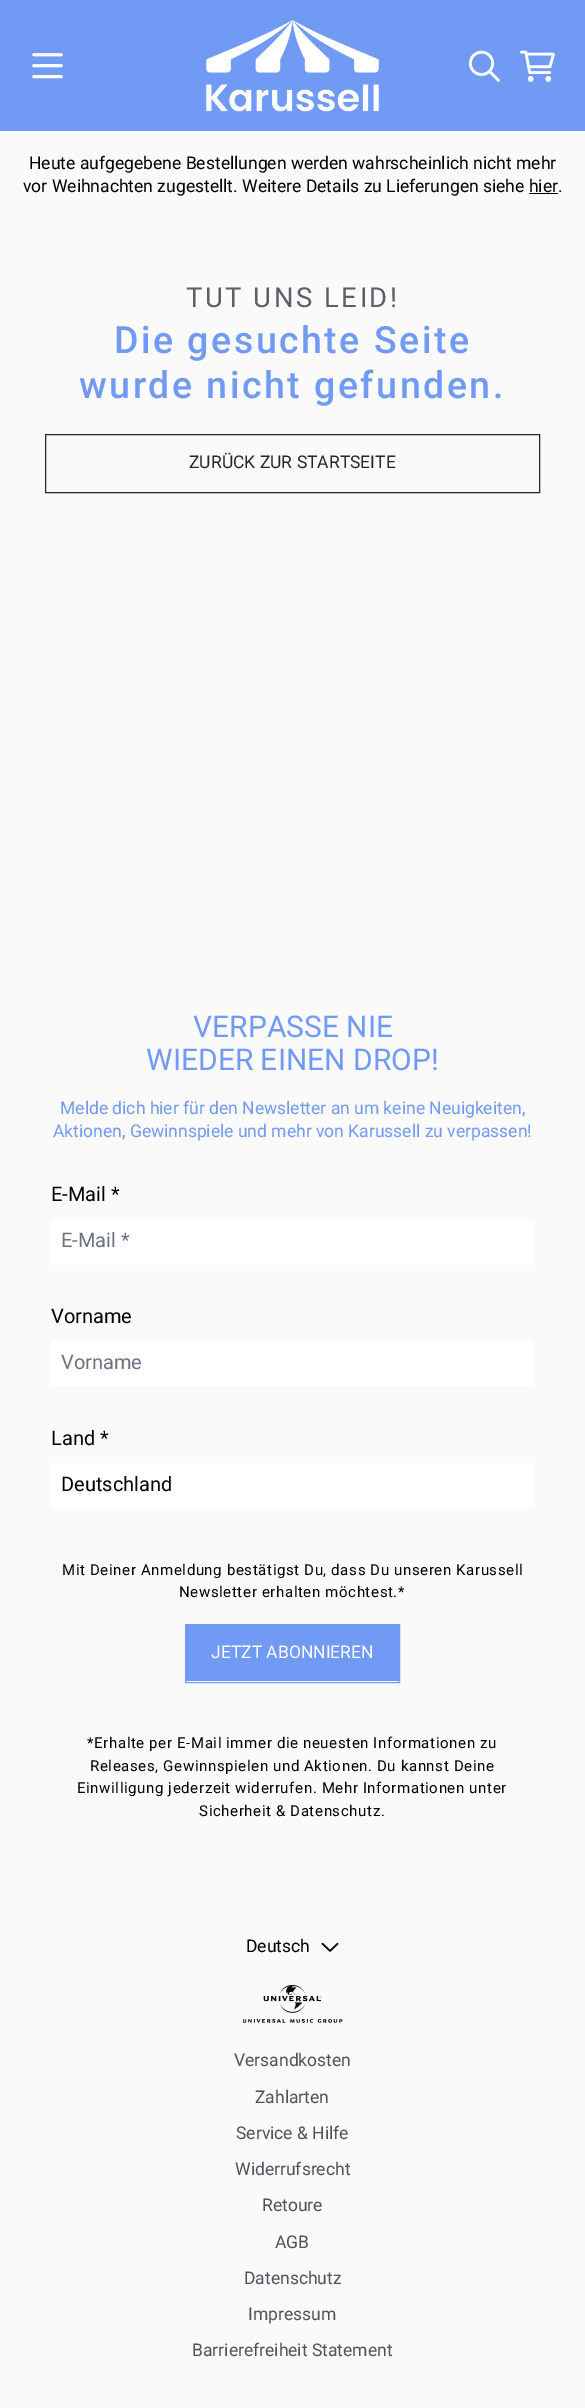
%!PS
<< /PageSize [585 2408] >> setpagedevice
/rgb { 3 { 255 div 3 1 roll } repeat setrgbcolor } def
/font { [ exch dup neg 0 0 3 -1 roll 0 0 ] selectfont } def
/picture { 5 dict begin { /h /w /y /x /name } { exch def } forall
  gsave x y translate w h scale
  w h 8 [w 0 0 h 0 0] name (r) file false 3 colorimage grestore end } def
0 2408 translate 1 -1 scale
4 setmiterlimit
250 250 250 rgb
0 0 585 2408 rectfill
113 154 244 rgb
0 0 585 131 rectfill
(img/1.rgb) 32 53 31 26 picture
(img/2.rgb) 206 20 173 92 picture
(img/3.rgb) 468 50 32 32 picture
(img/4.rgb) 520 50 35 32 picture
0 0 0 rgb
529 193 29 1 rectfill
39 39 42 rgb
45.5 434.5 494 58 rectstroke
[
  [51 1219 483 46 255 255 255]
  [51 1340 483 46 255 255 255]
  [51 1463 483 46 255 255 255]
] { aload pop rgb rectfill } forall
113 154 244 rgb
185.5 1624.5 214 58 rectstroke
186 1625 213 56 rectfill
(img/5.rgb) 321 1942 18 10 picture
(img/6.rgb) 243 1985 100 38 picture
/Roboto-Regular 17.5 font
0 0 0 rgb
29 169 moveto (Heute aufgegebene Bestellungen werden wahrscheinlich nicht mehr) show
23 192 moveto (vor Weihnachten zugestellt. Weitere Details zu Lieferungen siehe hier.) show
/Roboto-Regular 27.5 font
92 96 102 rgb
186 307 moveto 2.5 0 (TUT UNS LEID!) ashow
/Roboto-Medium 37.5 font
113 154 244 rgb
114 353 moveto 2.5 0 (Die gesuchte Seite) ashow
79 398 moveto 2.5 0 (wurde nicht gefunden.) ashow
/Roboto-Regular 17.5 font
39 39 42 rgb
189 468 moveto (ZURÜCK ZUR STARTSEITE) show
/Roboto-Regular 30 font
113 154 244 rgb
193 1037 moveto (VERPASSE NIE) show
146 1070 moveto (WIEDER EINEN DROP!) show
/Roboto-Regular 17.5 font
60 1114 moveto (Melde dich hier für den Newsletter an um keine Neuigkeiten,) show
53 1137 moveto (Aktionen, Gewinnspiele und mehr von Karussell zu verpassen!) show
/Roboto-Regular 20 font
0 0 0 rgb
51 1201 moveto (E-Mail *) show
107 114 128 rgb
61 1247 moveto (E-Mail *) show
0 0 0 rgb
51 1323 moveto (Vorname) show
107 114 128 rgb
61 1369 moveto (Vorname) show
0 0 0 rgb
51 1445 moveto (Land *) show
61 1491 moveto (Deutschland) show
/Roboto-Regular 15 font
62 1575 moveto 0.62 0 (Mit Deiner Anmeldung bestätigst Du, dass Du unseren Karussell) ashow
179 1597 moveto 0.62 0 (Newsletter erhalten möchtest.*) ashow
/Roboto-Regular 17.5 font
255 255 255 rgb
211 1658 moveto (JETZT ABONNIEREN) show
/Roboto-Regular 15 font
0 0 0 rgb
87 1748 moveto 0.62 0 (*Erhalte per E-Mail immer die neuesten Informationen zu) ashow
90 1771 moveto 0.62 0 (Releases, Gewinnspielen und Aktionen. Du kannst Deine) ashow
77 1793 moveto 0.62 0 (Einwilligung jederzeit widerrufen. Mehr Informationen unter) ashow
199 1816 moveto 0.62 0 (Sicherheit & Datenschutz.) ashow
/Roboto-Regular 17.5 font
246 1952 moveto (Deutsch) show
82 82 91 rgb
[
  [(Versandkosten) 234 2066]
  [(Zahlarten) 255 2103]
  [(Service & Hilfe) 236 2139]
  [(Widerrufsrecht) 235 2175]
  [(Retoure) 262 2211]
  [(AGB) 275 2248]
  [(Datenschutz) 244 2284]
  [(Impressum) 248 2320]
  [(Barrierefreiheit Statement) 192 2356]
] { aload pop moveto show } forall
showpage
